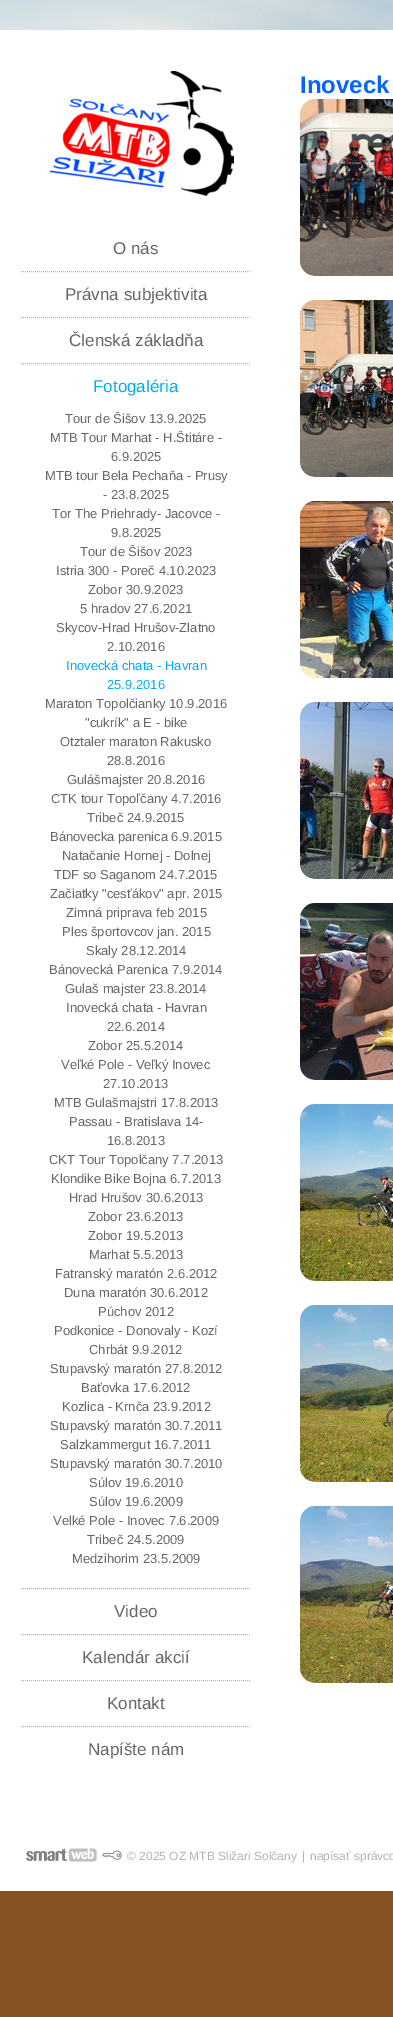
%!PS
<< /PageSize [393 2017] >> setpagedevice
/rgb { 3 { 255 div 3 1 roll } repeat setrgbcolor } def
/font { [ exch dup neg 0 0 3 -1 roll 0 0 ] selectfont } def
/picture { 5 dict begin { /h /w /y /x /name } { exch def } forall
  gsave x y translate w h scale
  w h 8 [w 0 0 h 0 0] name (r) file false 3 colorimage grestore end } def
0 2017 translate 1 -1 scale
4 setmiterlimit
134 82 36 rgb
0 0 393 2017 rectfill
(img/1.rgb) 0 0 393 30 picture
255 255 255 rgb
0 30 393 1861 rectfill
(img/2.rgb) 300 99 93 177 picture
(img/3.rgb) 300 300 93 177 picture
(img/4.rgb) 300 501 93 177 picture
(img/5.rgb) 300 702 93 177 picture
(img/6.rgb) 300 903 93 177 picture
(img/7.rgb) 300 1104 93 177 picture
(img/8.rgb) 300 1305 93 177 picture
(img/9.rgb) 300 1506 93 177 picture
(img/10.rgb) 50 71 184 125 picture
179 179 179 rgb
[1 1] 0 setdash
21 271.5 moveto 251 271.5 lineto stroke
21 317.5 moveto 251 317.5 lineto stroke
21 363.5 moveto 251 363.5 lineto stroke
21 1588.5 moveto 251 1588.5 lineto stroke
21 1634.5 moveto 251 1634.5 lineto stroke
21 1680.5 moveto 251 1680.5 lineto stroke
21 1726.5 moveto 251 1726.5 lineto stroke
(img/11.rgb) 26 1848 41 13 picture
(img/12.rgb) 68 1848 29 14 picture
(img/13.rgb) 102 1850 20 10 picture
/LiberationSans-Bold 24 font
0 102 255 rgb
300 93 moveto (Inoveck) show
/LiberationSans-Regular 17 font
102 102 102 rgb
[
  [(O nás) 113 254]
  [(Právna subjektivita) 65 300]
  [(Členská základňa) 69 346]
] { aload pop moveto show } forall
0 174 239 rgb
93 392 moveto (Fotogaléria) show
/LiberationSans-Regular 13 font
102 102 102 rgb
[
  [(Tour de Šišov 13.9.2025) 65 423]
  [(MTB Tour Marhat - H.Štitáre -) 50 442]
  [(6.9.2025) 111 461]
  [(MTB tour Bela Pechaňa - Prusy) 45 480]
  [(- 23.8.2025) 103 499]
  [(Tor The Priehrady- Jacovce -) 52 518]
  [(9.8.2025) 111 537]
  [(Tour de Šišov 2023) 80 556]
  [(Istria 300 - Poreč 4.10.2023) 56 575]
  [(Zobor 30.9.2023) 88 594]
  [(5 hradov 27.6.2021) 80 613]
  [(Skycov-Hrad Hrušov-Zlatno) 56 632]
  [(2.10.2016) 107 651]
] { aload pop moveto show } forall
0 174 239 rgb
66 670 moveto (Inovecká chata - Havran) show
107 689 moveto (25.9.2016) show
102 102 102 rgb
[
  [(Maraton Topolčianky 10.9.2016) 45 708]
  [("cukrík" a E - bike) 85 727]
  [(Otztaler maraton Rakusko) 60 746]
  [(28.8.2016) 107 765]
  [(Gulášmajster 20.8.2016) 67 784]
  [(CTK tour Topoľčany 4.7.2016) 51 803]
  [(Tribeč 24.9.2015) 87 822]
  [(Bánovecka parenica 6.9.2015) 50 841]
  [(Natačanie Hornej - Dolnej) 62 860]
  [(TDF so Saganom 24.7.2015) 54 879]
  [(Začiatky "cesťákov" apr. 2015) 50 898]
  [(Zimná priprava feb 2015) 66 917]
  [(Ples športovcov jan. 2015) 62 936]
  [(Skaly 28.12.2014) 86 955]
  [(Bánovecká Parenica 7.9.2014) 49 974]
  [(Gulaš majster 23.8.2014) 65 993]
  [(Inovecká chata - Havran) 66 1012]
  [(22.6.2014) 107 1031]
  [(Zobor 25.5.2014) 88 1050]
  [(Veľké Pole - Veľký Inovec) 61 1069]
  [(27.10.2013) 103 1088]
  [(MTB Gulašmajstri 17.8.2013) 54 1107]
  [(Passau - Bratislava 14-) 69 1126]
  [(16.8.2013) 107 1145]
  [(CKT Tour Topolčany 7.7.2013) 49 1164]
  [(Klondike Bike Bojna 6.7.2013) 51 1183]
  [(Hrad Hrušov 30.6.2013) 69 1202]
  [(Zobor 23.6.2013) 88 1221]
  [(Zobor 19.5.2013) 88 1240]
  [(Marhat 5.5.2013) 89 1259]
  [(Fatranský maratón 2.6.2012) 55 1278]
  [(Duna maratón 30.6.2012) 64 1297]
  [(Púchov 2012) 98 1316]
  [(Podkonice - Donovaly - Kozí) 54 1335]
  [(Chrbát 9.9.2012) 89 1354]
  [(Stupavský maratón 27.8.2012) 50 1373]
  [(Baťovka 17.6.2012) 81 1392]
  [(Kozlica - Krnča 23.9.2012) 62 1411]
  [(Stupavský maratón 30.7.2011) 50 1430]
  [(Salzkammergut 16.7.2011) 60 1449]
  [(Stupavský maratón 30.7.2010) 50 1468]
  [(Súlov 19.6.2010) 89 1487]
  [(Súlov 19.6.2009) 89 1506]
  [(Velké Pole - Inovec 7.6.2009) 53 1525]
  [(Tribeč 24.5.2009) 87 1544]
  [(Medzihorim 23.5.2009) 72 1563]
] { aload pop moveto show } forall
/LiberationSans-Regular 17 font
[
  [(Video) 114 1617]
  [(Kalendár akcií) 82 1663]
  [(Kontakt) 107 1709]
  [(Napíšte nám) 88 1755]
] { aload pop moveto show } forall
/LiberationSans-Regular 12 font
179 179 179 rgb
[
  [(© 2025 OZ MTB Sližari Solčany) 127 1860]
  [(|) 302 1860]
  [(napísať správco) 310 1860]
] { aload pop moveto show } forall
showpage
